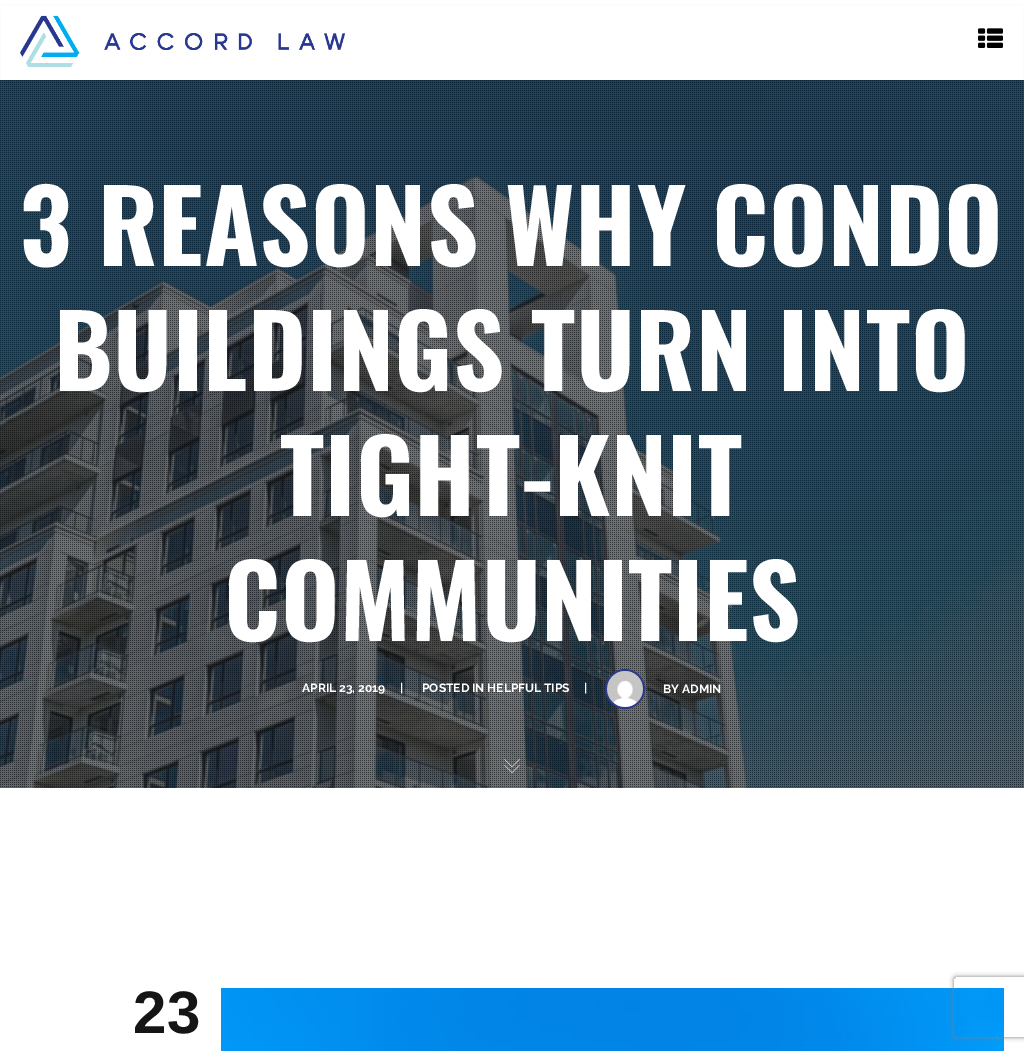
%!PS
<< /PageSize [1024 1051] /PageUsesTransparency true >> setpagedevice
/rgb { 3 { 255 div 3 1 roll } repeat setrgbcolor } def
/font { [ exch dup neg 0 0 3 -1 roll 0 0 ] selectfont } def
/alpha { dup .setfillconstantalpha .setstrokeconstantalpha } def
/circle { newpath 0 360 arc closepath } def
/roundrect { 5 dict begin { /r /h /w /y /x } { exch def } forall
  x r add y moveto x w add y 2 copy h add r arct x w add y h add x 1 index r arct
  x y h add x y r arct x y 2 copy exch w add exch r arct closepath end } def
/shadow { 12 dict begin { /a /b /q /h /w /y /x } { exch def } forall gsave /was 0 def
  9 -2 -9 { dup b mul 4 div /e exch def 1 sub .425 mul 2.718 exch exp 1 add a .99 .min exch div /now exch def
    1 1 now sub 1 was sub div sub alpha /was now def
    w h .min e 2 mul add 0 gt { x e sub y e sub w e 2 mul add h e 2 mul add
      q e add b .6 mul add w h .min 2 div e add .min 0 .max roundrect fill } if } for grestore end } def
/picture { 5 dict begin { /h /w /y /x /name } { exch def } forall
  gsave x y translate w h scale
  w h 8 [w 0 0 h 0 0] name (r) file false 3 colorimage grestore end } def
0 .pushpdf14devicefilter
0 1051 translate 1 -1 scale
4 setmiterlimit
255 255 255 rgb
0 0 1024 1051 rectfill
(img/3.rgb) 0 80 1024 708 picture
(img/4.rgb) 0 80 1024 708 picture
0 0 0 rgb
4 9 1016 72 0 2.5 0.1 shadow
255 255 255 rgb
1 6 1022 74 rectfill
(img/1.rgb) 20 15 325 52 picture
(img/2.rgb) 978 28 25 20 picture
43 57 144 rgb
2 setlinewidth
625 689 19 circle stroke
(img/5.rgb) 607 671 36 36 picture
(img/6.rgb) 504 759 16 14 picture
(img/7.rgb) 221 988 783 63 picture
gsave
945 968 moveto 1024 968 lineto 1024 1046 lineto 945 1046 lineto closepath 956 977 moveto 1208 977 lineto 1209 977 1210 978 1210 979 curveto 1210 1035 lineto 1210 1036 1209 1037 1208 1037 curveto 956 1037 lineto 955 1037 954 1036 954 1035 curveto 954 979 lineto 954 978 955 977 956 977 curveto closepath eoclip newpath
128 128 128 rgb
954 977 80 60 2 2.5 1 shadow
grestore
/Oswald-Bold 100 font
255 255 255 rgb
20 266 moveto 0.5 0 (3 REASONS WHY CONDO) ashow
54 391 moveto 0.5 0 (BUILDINGS TURN INTO) ashow
280 516 moveto 0.5 0 (TIGHT-KNIT) ashow
224 641 moveto 0.5 0 (COMMUNITIES) ashow
/Raleway-Thin 12 font
[
  [(APRIL 23, 2019) 302 692]
  [(|) 400 692]
  [(POSTED IN HELPFUL TIPS) 422 692]
  [(|) 584 692]
  [(BY ADMIN) 663 693]
] { aload pop moveto show } forall
/LiberationSans-Bold 60 font
21 21 21 rgb
133 1033 moveto 0.5 0 (23) ashow
.poppdf14devicefilter showpage
